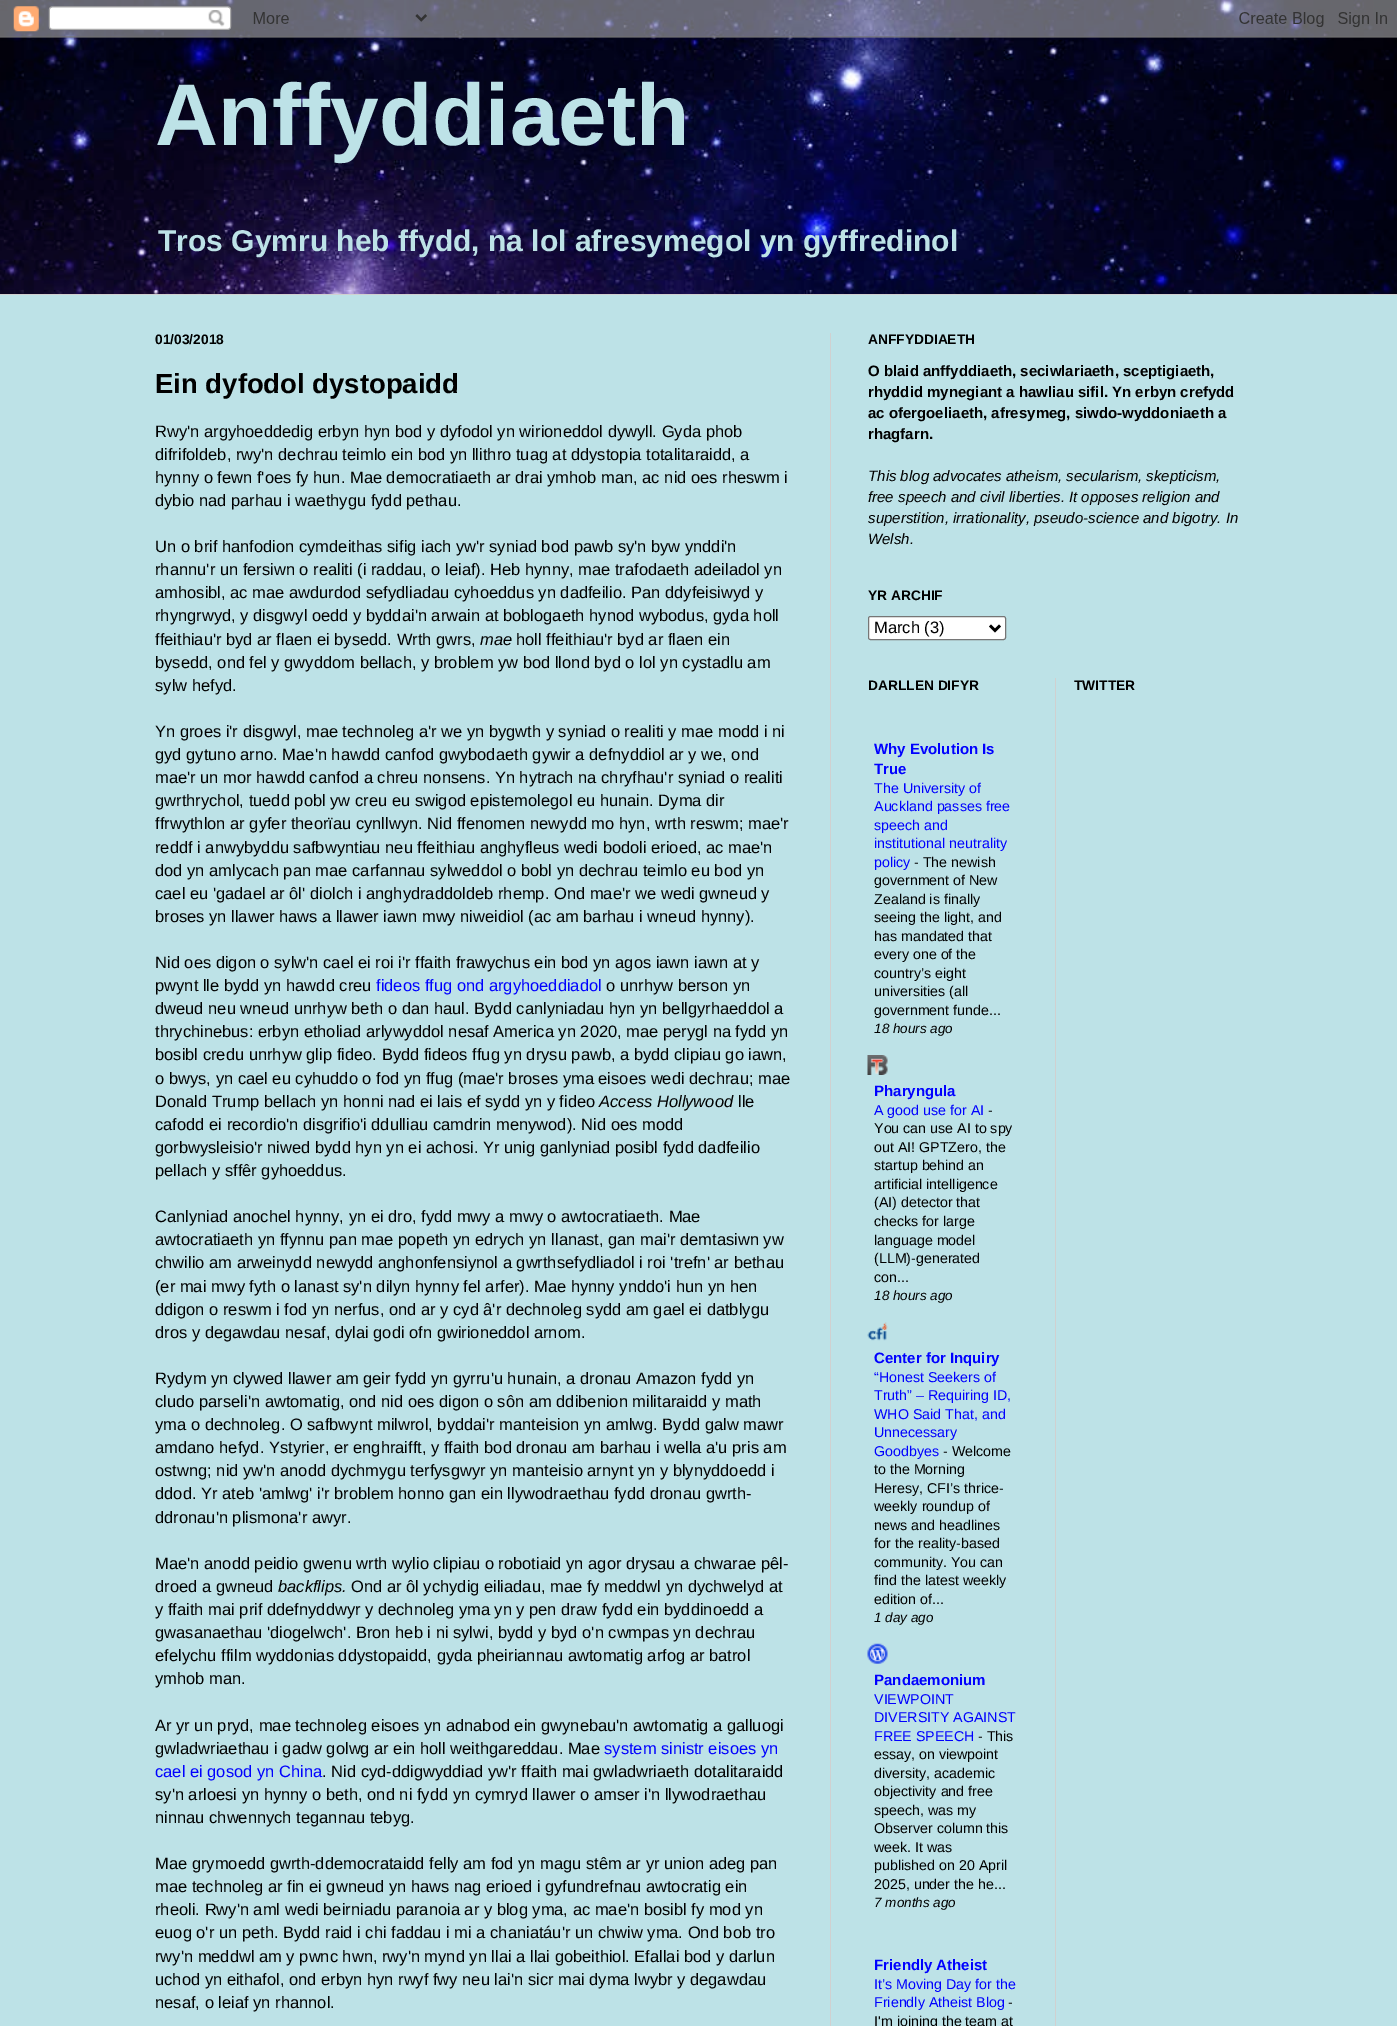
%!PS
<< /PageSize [1397 2026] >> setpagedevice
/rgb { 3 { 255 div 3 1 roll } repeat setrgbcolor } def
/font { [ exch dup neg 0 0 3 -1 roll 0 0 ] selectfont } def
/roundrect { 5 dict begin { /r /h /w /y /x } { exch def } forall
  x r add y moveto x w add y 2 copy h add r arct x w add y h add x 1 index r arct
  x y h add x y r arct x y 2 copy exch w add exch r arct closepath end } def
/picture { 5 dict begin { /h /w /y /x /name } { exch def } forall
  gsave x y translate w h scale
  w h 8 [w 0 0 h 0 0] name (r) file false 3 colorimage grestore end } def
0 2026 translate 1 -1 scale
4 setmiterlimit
255 255 255 rgb
0 0 1397 2026 rectfill
(img/1.rgb) 0 0 1397 294 picture
(img/2.rgb) 0 0 1397 38 picture
[
  [0 295 1397 1731 189 226 231]
  [0 294 1397 1 208 208 208]
  [830 333 1 1693 208 208 208]
] { aload pop rgb rectfill } forall
255 255 255 rgb
868.5 616.5 137 23 2 roundrect gsave fill grestore
118 118 118 rgb
stroke
0 0 0 rgb
2.5 setlinewidth
990 625.5 moveto 995 630.5 lineto 1000 625.5 lineto stroke
(img/3.rgb) 867 1055 21 20 picture
(img/4.rgb) 867 1322 21 19 picture
(img/5.rgb) 867 1643 21 21 picture
208 208 208 rgb
1055 678 1 1348 rectfill
/LiberationSans-Bold 87.5 font
189 226 231 rgb
155 145 moveto (Anffyddiaeth) show
/LiberationSans-Bold 30 font
158 251 moveto (Tros Gymru heb ffydd, na lol afresymegol yn gyffredinol) show
/LiberationSans-Bold 13.75 font
0 0 0 rgb
155 344 moveto (01/03/2018) show
/LiberationSans-Bold 27.5 font
155 393 moveto (Ein dyfodol dystopaidd) show
/LiberationSans-Regular 16.5 font
[
  [(Rwy'n argyhoeddedig erbyn hyn bod y dyfodol yn wirioneddol dywyll. Gyda phob) 155 437]
  [(difrifoldeb, rwy'n dechrau teimlo ein bod yn llithro tuag at ddystopia totalitaraidd, a) 155 460]
  [(hynny o fewn f'oes fy hun. Mae democratiaeth ar drai ymhob man, ac nid oes rheswm i) 155 483]
  [(dybio nad parhau i waethygu fydd pethau.) 155 506]
  [(Un o brif hanfodion cymdeithas sifig iach yw'r syniad bod pawb sy'n byw ynddi'n) 155 552]
  [(rhannu'r un fersiwn o realiti \(i raddau, o leiaf\). Heb hynny, mae trafodaeth adeiladol yn) 155 575]
  [(amhosibl, ac mae awdurdod sefydliadau cyhoeddus yn dadfeilio. Pan ddyfeisiwyd y) 155 598]
  [(rhyngrwyd, y disgwyl oedd y byddai'n arwain at boblogaeth hynod wybodus, gyda holl) 155 621]
  [(ffeithiau'r byd ar flaen ei bysedd. Wrth gwrs,) 155 645]
] { aload pop moveto show } forall
/LiberationSans-Italic 16.5 font
480 645 moveto (mae) show
/LiberationSans-Regular 16.5 font
[
  [(holl ffeithiau'r byd ar flaen ein) 516 645]
  [(bysedd, ond fel y gwyddom bellach, y broblem yw bod llond byd o lol yn cystadlu am) 155 668]
  [(sylw hefyd.) 155 691]
  [(Yn groes i'r disgwyl, mae technoleg a'r we yn bygwth y syniad o realiti y mae modd i ni) 155 737]
  [(gyd gytuno arno. Mae'n hawdd canfod gwybodaeth gywir a defnyddiol ar y we, ond) 155 760]
  [(mae'r un mor hawdd canfod a chreu nonsens. Yn hytrach na chryfhau'r syniad o realiti) 155 783]
  [(gwrthrychol, tuedd pobl yw creu eu swigod epistemolegol eu hunain. Dyma dir) 155 806]
  [(ffrwythlon ar gyfer theorïau cynllwyn. Nid ffenomen newydd mo hyn, wrth reswm; mae'r) 155 829]
  [(reddf i anwybyddu safbwyntiau neu ffeithiau anghyfleus wedi bodoli erioed, ac mae'n) 155 853]
  [(dod yn amlycach pan mae carfannau sylweddol o bobl yn dechrau teimlo eu bod yn) 155 876]
  [(cael eu 'gadael ar ôl' diolch i anghydraddoldeb rhemp. Ond mae'r we wedi gwneud y) 155 899]
  [(broses yn llawer haws a llawer iawn mwy niweidiol \(ac am barhau i wneud hynny\).) 155 922]
  [(Nid oes digon o sylw'n cael ei roi i'r ffaith frawychus ein bod yn agos iawn iawn at y) 155 968]
  [(pwynt lle bydd yn hawdd creu) 155 991]
] { aload pop moveto show } forall
0 0 255 rgb
376 991 moveto (fideos ffug ond argyhoeddiadol) show
0 0 0 rgb
[
  [(o unrhyw berson yn) 606 991]
  [(dweud neu wneud unrhyw beth o dan haul. Bydd canlyniadau hyn yn bellgyrhaeddol a) 155 1014]
  [(thrychinebus: erbyn etholiad arlywyddol nesaf America yn 2020, mae perygl na fydd yn) 155 1037]
  [(bosibl credu unrhyw glip fideo. Bydd fideos ffug yn drysu pawb, a bydd clipiau go iawn,) 155 1060]
  [(o bwys, yn cael eu cyhuddo o fod yn ffug \(mae'r broses yma eisoes wedi dechrau; mae) 155 1084]
  [(Donald Trump bellach yn honni nad ei lais ef sydd yn y fideo) 155 1107]
] { aload pop moveto show } forall
/LiberationSans-Italic 16.5 font
599 1107 moveto (Access Hollywood) show
/LiberationSans-Regular 16.5 font
[
  [(lle) 738 1107]
  [(cafodd ei recordio'n disgrifio'i ddulliau camdrin menywod\). Nid oes modd) 155 1130]
  [(gorbwysleisio'r niwed bydd hyn yn ei achosi. Yr unig ganlyniad posibl fydd dadfeilio) 155 1153]
  [(pellach y sffêr gyhoeddus.) 155 1176]
  [(Canlyniad anochel hynny, yn ei dro, fydd mwy a mwy o awtocratiaeth. Mae) 155 1222]
  [(awtocratiaeth yn ffynnu pan mae popeth yn edrych yn llanast, gan mai'r demtasiwn yw) 155 1245]
  [(chwilio am arweinydd newydd anghonfensiynol a gwrthsefydliadol i roi 'trefn' ar bethau) 155 1268]
  [(\(er mai mwy fyth o lanast sy'n dilyn hynny fel arfer\). Mae hynny ynddo'i hun yn hen) 155 1292]
  [(ddigon o reswm i fod yn nerfus, ond ar y cyd â'r dechnoleg sydd am gael ei datblygu) 155 1315]
  [(dros y degawdau nesaf, dylai godi ofn gwirioneddol arnom.) 155 1338]
  [(Rydym yn clywed llawer am geir fydd yn gyrru'u hunain, a dronau Amazon fydd yn) 155 1384]
  [(cludo parseli'n awtomatig, ond nid oes digon o sôn am ddibenion militaraidd y math) 155 1407]
  [(yma o dechnoleg. O safbwynt milwrol, byddai'r manteision yn amlwg. Bydd galw mawr) 155 1430]
  [(amdano hefyd. Ystyrier, er enghraifft, y ffaith bod dronau am barhau i wella a'u pris am) 155 1453]
  [(ostwng; nid yw'n anodd dychmygu terfysgwyr yn manteisio arnynt yn y blynyddoedd i) 155 1476]
  [(ddod. Yr ateb 'amlwg' i'r broblem honno gan ein llywodraethau fydd dronau gwrth-) 155 1499]
  [(ddronau'n plismona'r awyr.) 155 1523]
  [(Mae'n anodd peidio gwenu wrth wylio clipiau o robotiaid yn agor drysau a chwarae pêl-) 155 1569]
  [(droed a gwneud) 155 1592]
] { aload pop moveto show } forall
/LiberationSans-Italic 16.5 font
278 1592 moveto (backflips.) show
/LiberationSans-Regular 16.5 font
[
  [(Ond ar ôl ychydig eiliadau, mae fy meddwl yn dychwelyd at) 351 1592]
  [(y ffaith mai prif ddefnyddwyr y dechnoleg yma yn y pen draw fydd ein byddinoedd a) 155 1615]
  [(gwasanaethau 'diogelwch'. Bron heb i ni sylwi, bydd y byd o'n cwmpas yn dechrau) 155 1638]
  [(efelychu ffilm wyddonias ddystopaidd, gyda pheiriannau awtomatig arfog ar batrol) 155 1661]
  [(ymhob man.) 155 1684]
  [(Ar yr un pryd, mae technoleg eisoes yn adnabod ein gwynebau'n awtomatig a galluogi) 155 1731]
  [(gwladwriaethau i gadw golwg ar ein holl weithgareddau. Mae) 155 1754]
] { aload pop moveto show } forall
0 0 255 rgb
604 1754 moveto (system sinistr eisoes yn) show
155 1777 moveto (cael ei gosod yn China) show
0 0 0 rgb
[
  [(. Nid cyd-ddigwyddiad yw'r ffaith mai gwladwriaeth dotalitaraidd) 322 1777]
  [(sy'n arloesi yn hynny o beth, ond ni fydd yn cymryd llawer o amser i'n llywodraethau) 155 1800]
  [(ninnau chwennych tegannau tebyg.) 155 1823]
  [(Mae grymoedd gwrth-ddemocrataidd felly am fod yn magu stêm ar yr union adeg pan) 155 1869]
  [(mae technoleg ar fin ei gwneud yn haws nag erioed i gyfundrefnau awtocratig ein) 155 1892]
  [(rheoli. Rwy'n aml wedi beirniadu paranoia ar y blog yma, ac mae'n bosibl fy mod yn) 155 1915]
  [(euog o'r un peth. Bydd raid i chi faddau i mi a chaniatáu'r un chwiw yma. Ond bob tro) 155 1938]
  [(rwy'n meddwl am y pwnc hwn, rwy'n mynd yn llai a llai gobeithiol. Efallai bod y darlun) 155 1962]
  [(uchod yn eithafol, ond erbyn hyn rwyf fwy neu lai'n sicr mai dyma lwybr y degawdau) 155 1985]
  [(nesaf, o leiaf yn rhannol.) 155 2008]
] { aload pop moveto show } forall
/LiberationSans-Bold 13.75 font
868 344 moveto (ANFFYDDIAETH) show
/LiberationSans-Bold 15 font
[
  [(O blaid anffyddiaeth, seciwlariaeth, sceptigiaeth,) 868 376]
  [(rhyddid mynegiant a hawliau sifil. Yn erbyn crefydd) 868 397]
  [(ac ofergoeliaeth, afresymeg, siwdo-wyddoniaeth a) 868 418]
  [(rhagfarn.) 868 439]
] { aload pop moveto show } forall
/LiberationSans-Italic 15 font
[
  [(This blog advocates atheism, secularism, skepticism,) 868 481]
  [(free speech and civil liberties. It opposes religion and) 868 502]
  [(superstition, irrationality, pseudo-science and bigotry. In) 868 523]
  [(Welsh.) 868 544]
] { aload pop moveto show } forall
/LiberationSans-Bold 13.75 font
868 600 moveto (YR ARCHIF) show
/LiberationSans-Regular 16.5 font
874 633 moveto (March \(3\)) show
/LiberationSans-Bold 13.75 font
868 690 moveto (DARLLEN DIFYR) show
/LiberationSans-Bold 15 font
0 0 255 rgb
874 754 moveto (Why Evolution Is) show
874 774 moveto (True) show
/LiberationSans-Regular 14.25 font
[
  [(The University of) 874 793]
  [(Auckland passes free) 874 811]
  [(speech and) 874 830]
  [(institutional neutrality) 874 848]
  [(policy) 874 867]
] { aload pop moveto show } forall
0 0 0 rgb
[
  [(- The newish) 914 867]
  [(government of New) 874 885]
  [(Zealand is finally) 874 904]
  [(seeing the light, and) 874 922]
  [(has mandated that) 874 941]
  [(every one of the) 874 959]
  [(country’s eight) 874 978]
  [(universities \(all) 874 996]
  [(government funde...) 874 1015]
] { aload pop moveto show } forall
/LiberationSans-Italic 13.5 font
874 1033 moveto (18 hours ago) show
/LiberationSans-Bold 15 font
0 0 255 rgb
874 1096 moveto (Pharyngula) show
/LiberationSans-Regular 14.25 font
874 1115 moveto (A good use for AI) show
0 0 0 rgb
[
  [(-) 988 1115]
  [(You can use AI to spy) 874 1133]
  [(out AI! GPTZero, the) 874 1152]
  [(startup behind an) 874 1170]
  [(artificial intelligence) 874 1189]
  [(\(AI\) detector that) 874 1207]
  [(checks for large) 874 1226]
  [(language model) 874 1245]
  [(\(LLM\)-generated) 874 1263]
  [(con...) 874 1282]
] { aload pop moveto show } forall
/LiberationSans-Italic 13.5 font
874 1300 moveto (18 hours ago) show
/LiberationSans-Bold 15 font
0 0 255 rgb
874 1363 moveto (Center for Inquiry) show
/LiberationSans-Regular 14.25 font
[
  [(“Honest Seekers of) 874 1382]
  [(Truth” – Requiring ID,) 874 1400]
  [(WHO Said That, and) 874 1419]
  [(Unnecessary) 874 1437]
  [(Goodbyes) 874 1456]
] { aload pop moveto show } forall
0 0 0 rgb
[
  [(- Welcome) 943 1456]
  [(to the Morning) 874 1474]
  [(Heresy, CFI’s thrice-) 874 1493]
  [(weekly roundup of) 874 1511]
  [(news and headlines) 874 1530]
  [(for the reality-based) 874 1548]
  [(community. You can) 874 1567]
  [(find the latest weekly) 874 1585]
  [(edition of...) 874 1604]
] { aload pop moveto show } forall
/LiberationSans-Italic 13.5 font
874 1622 moveto (1 day ago) show
/LiberationSans-Bold 15 font
0 0 255 rgb
874 1685 moveto (Pandaemonium) show
/LiberationSans-Regular 14.25 font
[
  [(VIEWPOINT) 874 1704]
  [(DIVERSITY AGAINST) 874 1722]
  [(FREE SPEECH) 874 1741]
] { aload pop moveto show } forall
0 0 0 rgb
[
  [(- This) 978 1741]
  [(essay, on viewpoint) 874 1759]
  [(diversity, academic) 874 1778]
  [(objectivity and free) 874 1796]
  [(speech, was my) 874 1815]
  [(Observer column this) 874 1833]
  [(week. It was) 874 1852]
  [(published on 20 April) 874 1870]
  [(2025, under the he...) 874 1889]
] { aload pop moveto show } forall
/LiberationSans-Italic 13.5 font
874 1907 moveto (7 months ago) show
/LiberationSans-Bold 15 font
0 0 255 rgb
874 1970 moveto (Friendly Atheist) show
/LiberationSans-Regular 14.25 font
874 1989 moveto (It’s Moving Day for the) show
874 2007 moveto (Friendly Atheist Blog) show
0 0 0 rgb
1008 2007 moveto (-) show
874 2026 moveto (I'm joining the team at) show
/LiberationSans-Bold 13.75 font
1074 690 moveto (TWITTER) show
showpage
